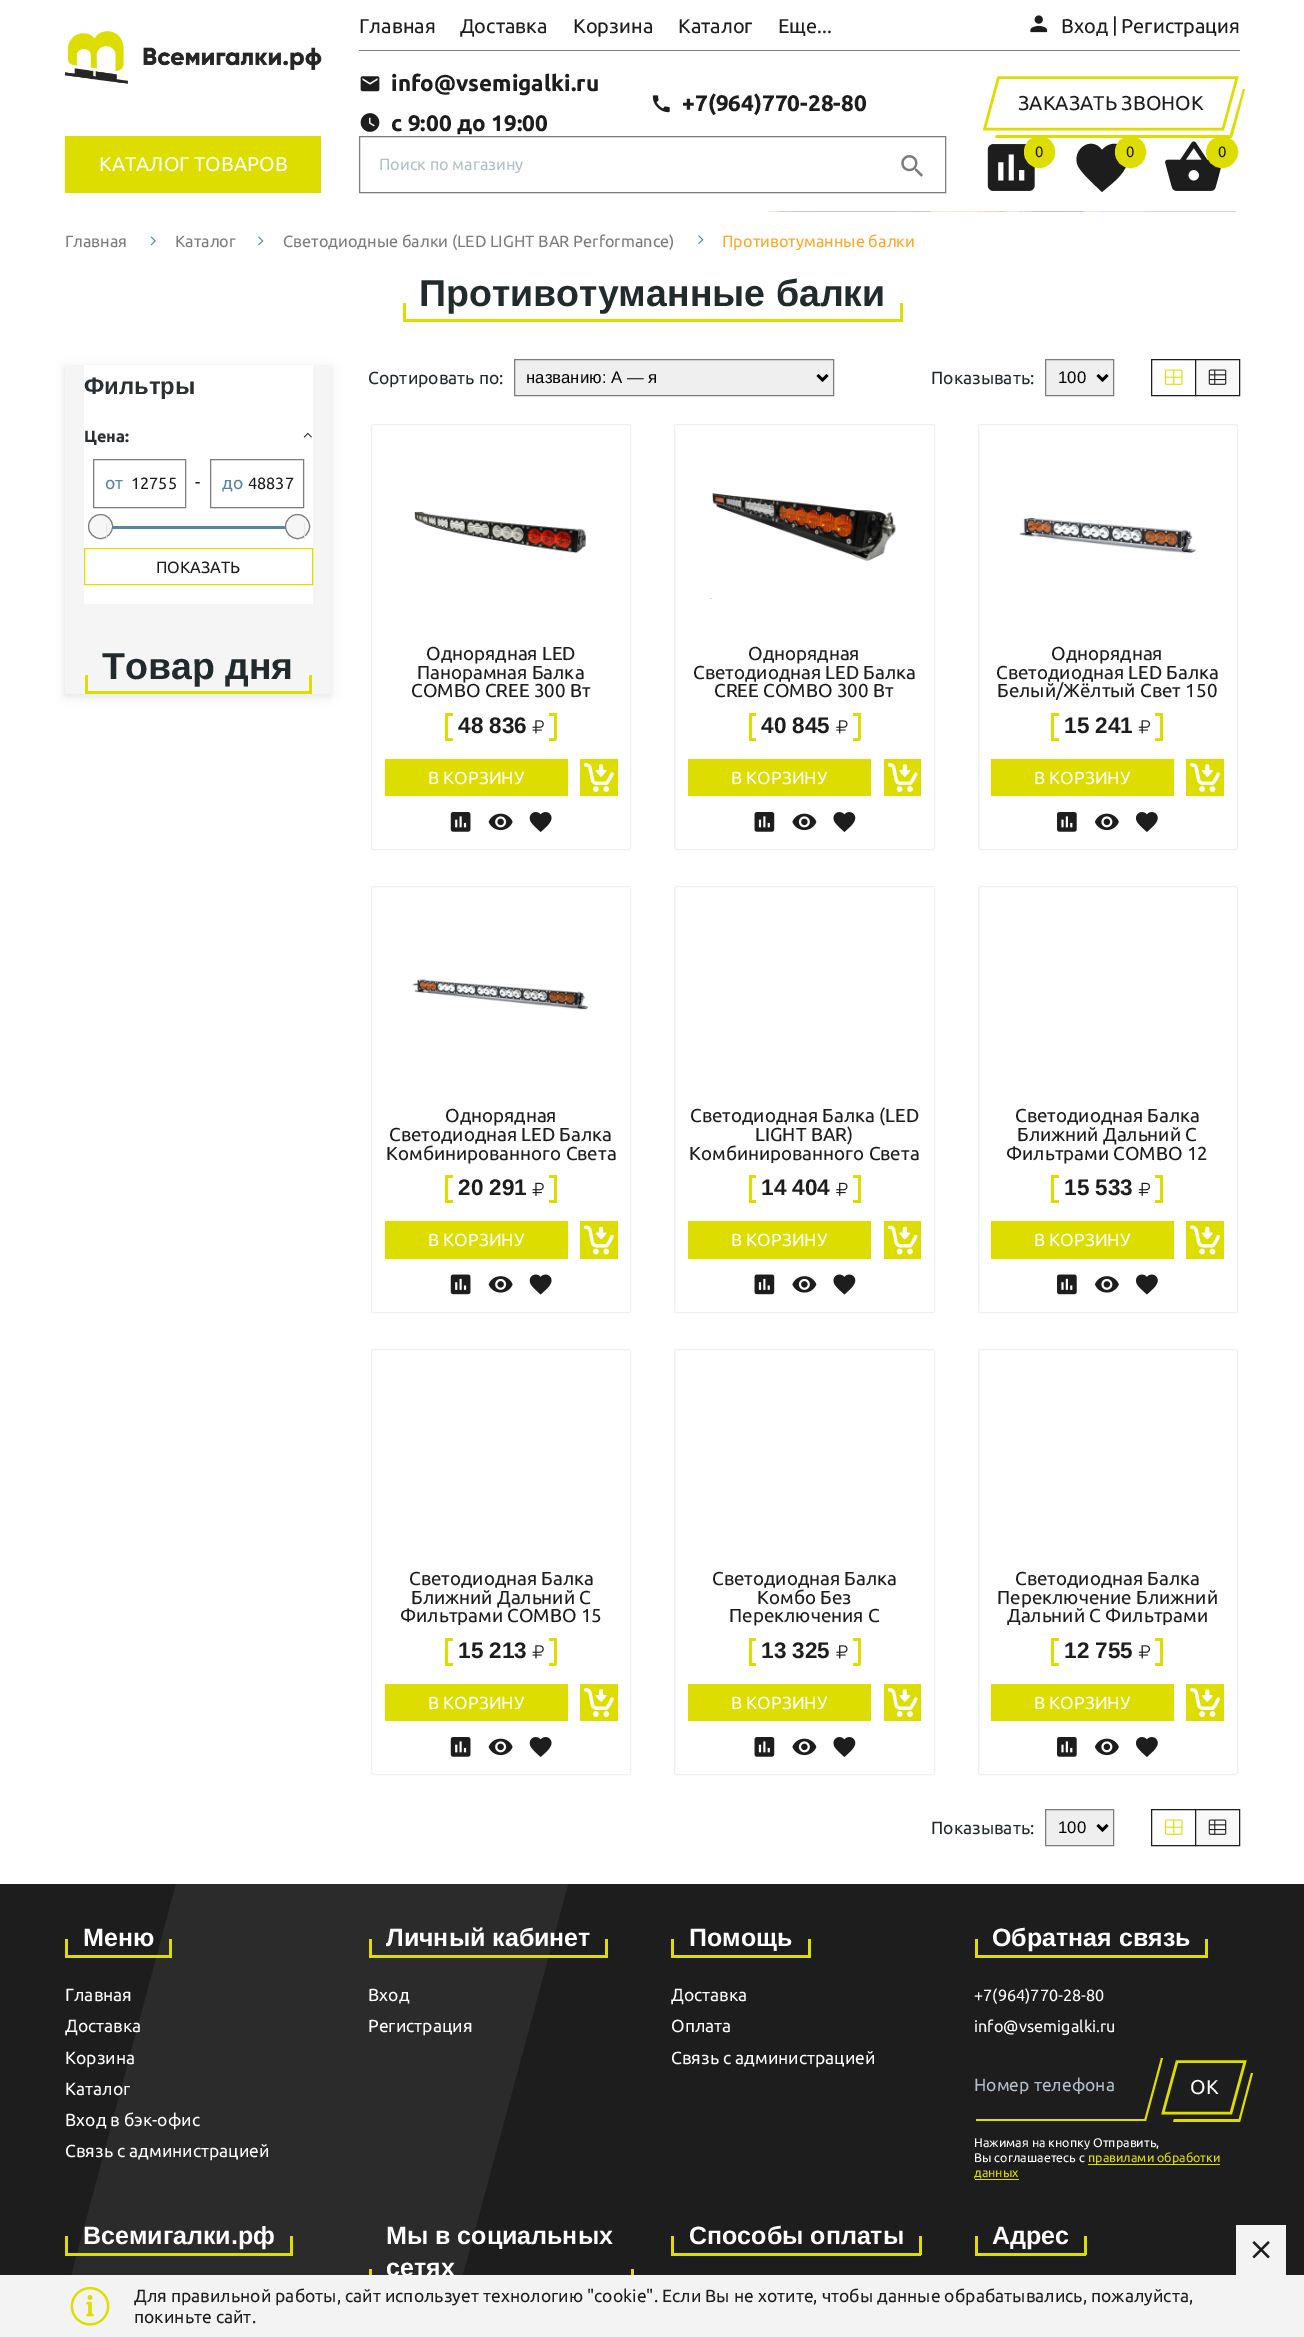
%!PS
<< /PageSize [1304 2337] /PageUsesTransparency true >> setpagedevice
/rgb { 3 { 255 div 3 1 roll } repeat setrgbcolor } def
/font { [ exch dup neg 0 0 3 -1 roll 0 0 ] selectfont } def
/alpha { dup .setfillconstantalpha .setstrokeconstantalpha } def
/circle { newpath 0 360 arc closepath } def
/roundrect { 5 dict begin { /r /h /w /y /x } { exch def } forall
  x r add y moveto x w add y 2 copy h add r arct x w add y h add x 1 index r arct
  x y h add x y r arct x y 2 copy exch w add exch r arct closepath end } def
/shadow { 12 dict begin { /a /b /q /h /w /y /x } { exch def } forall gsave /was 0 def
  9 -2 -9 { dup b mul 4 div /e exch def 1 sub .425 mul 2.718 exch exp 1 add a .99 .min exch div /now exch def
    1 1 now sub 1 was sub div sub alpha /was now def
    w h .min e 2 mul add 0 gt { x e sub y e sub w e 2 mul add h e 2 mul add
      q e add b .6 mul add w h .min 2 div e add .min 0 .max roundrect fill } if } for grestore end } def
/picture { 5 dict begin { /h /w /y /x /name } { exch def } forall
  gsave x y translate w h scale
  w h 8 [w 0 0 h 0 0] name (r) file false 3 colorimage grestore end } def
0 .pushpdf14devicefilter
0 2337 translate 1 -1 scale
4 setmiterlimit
255 255 255 rgb
0 0 1304 2337 rectfill
(img/1.rgb) 761 211 484 1 picture
(img/2.rgb) 1030 15 18 18 picture
(img/3.rgb) 65 31 257 53 picture
124 124 124 rgb
359 50 881 1 rectfill
(img/4.rgb) 360 76 20 16 picture
(img/5.rgb) 360 113 20 19 picture
(img/6.rgb) 652 95 18 18 picture
222 221 0 rgb
2.5 setlinewidth
998.5 77.5 moveto 1237 77.5 lineto 1223 129 lineto 984.5 129 lineto closepath stroke
996 135 moveto 1231 135 lineto 1231 138 lineto 995 138 lineto closepath fill
1243 89 moveto 1245 89 lineto 1232 138 lineto 1229 138 lineto closepath fill
(img/7.rgb) 987 144 48 47 picture
1025.5 137.5 28 29 14 roundrect gsave fill grestore
3 setlinewidth
stroke
29 29 29 rgb
1102 192 moveto 1095 185 1083 175 1078 166 curveto 1071 150 1091 135 1102 150 curveto 1114 136 1134 148 1127 164 curveto 1123 176 1111 184 1102 192 curveto closepath fill
222 221 0 rgb
1116.5 137.5 28 29 14 roundrect gsave fill grestore
stroke
(img/8.rgb) 1165 141 57 50 picture
1222 152 14.5 circle gsave fill grestore
stroke
65 136 256 57 rectfill
124 124 124 rgb
1 setlinewidth
359.5 136.5 586 56 rectstroke
(img/9.rgb) 901 155 22 22 picture
(img/10.rgb) 150 236 6 10 picture
(img/11.rgb) 258 236 6 10 picture
(img/12.rgb) 698 235 6 9 picture
[
  [900 303 3 18 222 221 0]
  [403 319 500 3 222 221 0]
  [403 303 3 18 222 221 0]
] { aload pop rgb rectfill } forall
104 104 104 rgb
65 368 266 328 0 5 0.2 shadow
245 245 245 rgb
65 365 266 329 rectfill
255 255 255 rgb
84 365 229 239 rectfill
(img/13.rgb) 303 432 9 6 picture
124 124 124 rgb
93.5 459.5 92 48 rectstroke
210.5 459.5 93 48 rectstroke
85 134 166 rgb
112 526 174 3 rectfill
246 246 246 rgb
100.5 526.5 12 circle gsave fill grestore
124 124 124 rgb
stroke
232 231 230 rgb
106 523 1 17 rectfill
246 246 246 rgb
297.5 526.5 12 circle gsave fill grestore
124 124 124 rgb
stroke
232 231 230 rgb
304 523 1 17 rectfill
222 221 0 rgb
84.5 548.5 228 36 rectstroke
[
  [309 675 3 19 222 221 0]
  [85 691 226 3 222 221 0]
  [85 675 3 19 222 221 0]
] { aload pop rgb rectfill } forall
239 239 239 rgb
514.5 359.5 moveto 833.5 359.5 lineto 833.5 395.5 lineto 514.5 395.5 lineto closepath gsave fill grestore
124 124 124 rgb
stroke
0 0 0 rgb
2.5 setlinewidth
817.5 375 moveto 822.5 380 lineto 827.5 375 lineto stroke
239 239 239 rgb
1045.5 359.5 moveto 1113.5 359.5 lineto 1113.5 395.5 lineto 1045.5 395.5 lineto closepath gsave fill grestore
124 124 124 rgb
1 setlinewidth
stroke
0 0 0 rgb
2.5 setlinewidth
1097.5 375 moveto 1102.5 380 lineto 1107.5 375 lineto stroke
29 29 29 rgb
1 setlinewidth
1151.5 359.5 44 36 rectstroke
(img/14.rgb) 1165 369 18 16 picture
248 248 248 rgb
1195.5 359.5 moveto 1239.5 359.5 lineto 1239.5 395.5 lineto 1195.5 395.5 lineto closepath gsave fill grestore
29 29 29 rgb
stroke
(img/15.rgb) 1208 369 19 16 picture
238 241 244 rgb
371.5 424.5 259 425 2 roundrect stroke
(img/16.rgb) 414 511 173 43 picture
[
  [445 713 8 3 222 221 0]
  [445 738 8 3 222 221 0]
  [445 713 3 27 222 221 0]
] { aload pop rgb rectfill } forall
(img/17.rgb) 532 720 12 14 picture
[
  [549 713 7 3 222 221 0]
  [554 713 3 27 222 221 0]
  [549 738 7 3 222 221 0]
  [385 759 183 37 222 221 0]
  [580 759 38 37 222 221 0]
] { aload pop rgb rectfill } forall
(img/18.rgb) 584 763 30 29 picture
(img/19.rgb) 450 812 21 20 picture
(img/20.rgb) 488 813 25 18 picture
(img/21.rgb) 529 812 23 20 picture
238 241 244 rgb
674.5 424.5 260 425 2 roundrect stroke
(img/22.rgb) 710 493 187 106 picture
[
  [749 713 7 3 222 221 0]
  [749 738 7 3 222 221 0]
  [749 713 3 27 222 221 0]
] { aload pop rgb rectfill } forall
(img/23.rgb) 836 720 12 14 picture
[
  [853 713 7 3 222 221 0]
  [858 713 3 27 222 221 0]
  [853 738 7 3 222 221 0]
  [688 759 183 37 222 221 0]
  [884 759 37 37 222 221 0]
] { aload pop rgb rectfill } forall
(img/24.rgb) 888 763 30 29 picture
(img/25.rgb) 754 812 21 20 picture
(img/26.rgb) 792 813 25 18 picture
(img/27.rgb) 833 812 23 20 picture
238 241 244 rgb
978.5 424.5 259 425 2 roundrect stroke
(img/28.rgb) 1019 517 177 37 picture
[
  [1051 713 8 3 222 221 0]
  [1051 738 8 3 222 221 0]
  [1051 713 3 27 222 221 0]
] { aload pop rgb rectfill } forall
(img/29.rgb) 1138 720 12 14 picture
[
  [1155 713 8 3 222 221 0]
  [1160 713 3 27 222 221 0]
  [1155 738 8 3 222 221 0]
  [991 759 183 37 222 221 0]
  [1186 759 38 37 222 221 0]
] { aload pop rgb rectfill } forall
(img/30.rgb) 1190 763 30 29 picture
(img/31.rgb) 1057 812 20 20 picture
(img/32.rgb) 1094 813 25 18 picture
(img/33.rgb) 1136 812 22 20 picture
238 241 244 rgb
371.5 886.5 259 426 2 roundrect stroke
(img/34.rgb) 412 979 177 31 picture
[
  [445 1175 8 3 222 221 0]
  [445 1200 8 3 222 221 0]
  [445 1175 3 28 222 221 0]
] { aload pop rgb rectfill } forall
(img/35.rgb) 532 1182 12 14 picture
[
  [549 1175 7 3 222 221 0]
  [554 1175 3 28 222 221 0]
  [549 1200 7 3 222 221 0]
  [385 1221 183 38 222 221 0]
  [580 1221 38 38 222 221 0]
] { aload pop rgb rectfill } forall
(img/36.rgb) 584 1225 30 30 picture
(img/37.rgb) 450 1274 21 21 picture
(img/38.rgb) 488 1276 25 17 picture
(img/39.rgb) 529 1274 23 21 picture
238 241 244 rgb
674.5 886.5 260 426 2 roundrect stroke
[
  [749 1175 7 3 222 221 0]
  [749 1200 7 3 222 221 0]
  [749 1175 3 28 222 221 0]
] { aload pop rgb rectfill } forall
(img/40.rgb) 836 1182 12 14 picture
[
  [853 1175 7 3 222 221 0]
  [858 1175 3 28 222 221 0]
  [853 1200 7 3 222 221 0]
  [688 1221 183 38 222 221 0]
  [884 1221 37 38 222 221 0]
] { aload pop rgb rectfill } forall
(img/41.rgb) 888 1225 30 30 picture
(img/42.rgb) 754 1274 21 21 picture
(img/43.rgb) 792 1276 25 17 picture
(img/44.rgb) 833 1274 23 21 picture
238 241 244 rgb
978.5 886.5 259 426 2 roundrect stroke
[
  [1051 1175 8 3 222 221 0]
  [1051 1200 8 3 222 221 0]
  [1051 1175 3 28 222 221 0]
] { aload pop rgb rectfill } forall
(img/45.rgb) 1138 1182 12 14 picture
[
  [1155 1175 8 3 222 221 0]
  [1160 1175 3 28 222 221 0]
  [1155 1200 8 3 222 221 0]
  [991 1221 183 38 222 221 0]
  [1186 1221 38 38 222 221 0]
] { aload pop rgb rectfill } forall
(img/46.rgb) 1190 1225 30 30 picture
(img/47.rgb) 1057 1274 20 21 picture
(img/48.rgb) 1094 1276 25 17 picture
(img/49.rgb) 1135 1274 23 21 picture
238 241 244 rgb
371.5 1349.5 259 425 2 roundrect stroke
[
  [445 1638 8 3 222 221 0]
  [445 1663 8 3 222 221 0]
  [445 1638 3 27 222 221 0]
] { aload pop rgb rectfill } forall
(img/17.rgb) 532 1645 12 14 picture
[
  [549 1638 7 3 222 221 0]
  [554 1638 3 27 222 221 0]
  [549 1663 7 3 222 221 0]
  [385 1684 183 37 222 221 0]
  [580 1684 38 37 222 221 0]
] { aload pop rgb rectfill } forall
(img/18.rgb) 584 1688 30 29 picture
(img/19.rgb) 450 1737 21 20 picture
(img/20.rgb) 488 1738 25 18 picture
(img/21.rgb) 529 1737 23 20 picture
238 241 244 rgb
674.5 1349.5 260 425 2 roundrect stroke
[
  [749 1638 7 3 222 221 0]
  [749 1663 7 3 222 221 0]
  [749 1638 3 27 222 221 0]
] { aload pop rgb rectfill } forall
(img/23.rgb) 836 1645 12 14 picture
[
  [853 1638 7 3 222 221 0]
  [858 1638 3 27 222 221 0]
  [853 1663 7 3 222 221 0]
  [688 1684 183 37 222 221 0]
  [884 1684 37 37 222 221 0]
] { aload pop rgb rectfill } forall
(img/24.rgb) 888 1688 30 29 picture
(img/25.rgb) 754 1737 21 20 picture
(img/26.rgb) 792 1738 25 18 picture
(img/27.rgb) 833 1737 23 20 picture
238 241 244 rgb
978.5 1349.5 259 425 2 roundrect stroke
[
  [1051 1638 8 3 222 221 0]
  [1051 1663 8 3 222 221 0]
  [1051 1638 3 27 222 221 0]
] { aload pop rgb rectfill } forall
(img/29.rgb) 1138 1645 12 14 picture
[
  [1155 1638 8 3 222 221 0]
  [1160 1638 3 27 222 221 0]
  [1155 1663 8 3 222 221 0]
  [991 1684 183 37 222 221 0]
  [1186 1684 38 37 222 221 0]
] { aload pop rgb rectfill } forall
(img/30.rgb) 1190 1688 30 29 picture
(img/31.rgb) 1057 1737 20 20 picture
(img/32.rgb) 1094 1738 25 18 picture
(img/33.rgb) 1136 1737 22 20 picture
239 239 239 rgb
1045.5 1809.5 moveto 1113.5 1809.5 lineto 1113.5 1845.5 lineto 1045.5 1845.5 lineto closepath gsave fill grestore
124 124 124 rgb
stroke
0 0 0 rgb
2.5 setlinewidth
1097.5 1825 moveto 1102.5 1830 lineto 1107.5 1825 lineto stroke
29 29 29 rgb
1 setlinewidth
1151.5 1809.5 44 36 rectstroke
(img/14.rgb) 1165 1819 18 16 picture
248 248 248 rgb
1195.5 1809.5 moveto 1239.5 1809.5 lineto 1239.5 1845.5 lineto 1195.5 1845.5 lineto closepath gsave fill grestore
29 29 29 rgb
stroke
(img/15.rgb) 1208 1819 19 16 picture
0 1884 1304 391 rectfill
43 43 43 rgb
176 1884 moveto 568 1884 lineto 424 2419 lineto 33 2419 lineto closepath fill
[
  [169 1939 3 19 222 221 0]
  [65 1955 106 3 222 221 0]
  [65 1939 3 19 222 221 0]
  [605 1939 3 19 222 221 0]
  [369 1955 239 3 222 221 0]
  [369 1939 3 19 222 221 0]
  [808 1939 3 19 222 221 0]
  [671 1955 139 3 222 221 0]
  [671 1939 3 19 222 221 0]
  [1205 1939 3 19 222 221 0]
  [975 1955 233 3 222 221 0]
  [975 1939 3 19 222 221 0]
] { aload pop rgb rectfill } forall
976 2119 moveto 1146 2119 lineto 1145 2121 lineto 976 2121 lineto closepath fill
1161 2058 moveto 1163 2058 lineto 1146 2121 lineto 1144 2121 lineto closepath fill
2.5 setlinewidth
1177 2061.5 moveto 1245 2061.5 lineto 1231 2113 lineto 1163 2113 lineto closepath stroke
1174 2119 moveto 1240 2119 lineto 1239 2122 lineto 1173 2122 lineto closepath fill
1251 2073 moveto 1253 2073 lineto 1240 2122 lineto 1238 2122 lineto closepath fill
[
  [1088 2164 132 1 222 221 0]
  [975 2179 44 1 222 221 0]
  [290 2236 3 19 222 221 0]
  [65 2253 228 3 222 221 0]
  [65 2236 3 19 222 221 0]
  [631 2269 3 6 222 221 0]
  [369 2269 3 6 222 221 0]
  [919 2236 3 19 222 221 0]
  [671 2253 250 3 222 221 0]
  [671 2236 3 19 222 221 0]
  [1084 2236 3 19 222 221 0]
  [975 2253 111 3 222 221 0]
  [975 2236 3 19 222 221 0]
  [1236 2225 50 50 243 243 243]
] { aload pop rgb rectfill } forall
(img/50.rgb) 1252 2241 18 18 picture
/Ubuntu-Regular 20 font
29 29 29 rgb
[
  [(Главная) 359 33]
  [(Доставка) 460 33]
  [(Корзина) 573 33]
  [(Каталог) 678 33]
  [(Еще...) 778 33]
  [(Вход) 1061 33]
  [(|) 1112 32]
  [(Регистрация) 1121 33]
] { aload pop moveto show } forall
/Ubuntu-Bold 22.5 font
[
  [(info@vsemigalki.ru) 391 91]
  [(с 9:00 до 19:00) 391 131]
  [(+7\(964\)770-28-80) 682 111]
] { aload pop moveto show } forall
/Ubuntu-Regular 20 font
1018 110 moveto (ЗАКАЗАТЬ ЗВОНОК) show
/Ubuntu-Regular 15 font
[
  [(0) 1035 157]
  [(0) 1126 157]
  [(0) 1218 157]
] { aload pop moveto show } forall
/Ubuntu-Regular 20 font
255 255 255 rgb
99 171 moveto (КАТАЛОГ ТОВАРОВ) show
/Ubuntu-Regular 16.25 font
177 191 200 rgb
379 170 moveto (Поиск по магазину) show
124 124 124 rgb
[
  [(Главная) 65 247]
  [(Каталог) 175 247]
  [(Светодиодные балки \(LED LIGHT BAR Performance\)) 283 247]
] { aload pop moveto show } forall
255 165 39 rgb
722 247 moveto (Противотуманные балки) show
/LiberationSans-Bold 37.5 font
33 43 45 rgb
419 306 moveto (Противотуманные балки) show
/LiberationSans-Bold 23.75 font
42 48 52 rgb
84 394 moveto (Фильтры) show
/Ubuntu-Bold 16.25 font
84 442 moveto (Цена:) show
/Ubuntu-Regular 17.5 font
85 134 166 rgb
105 489 moveto (от) show
/Ubuntu-Regular 16.25 font
29 29 29 rgb
131 489 moveto (12755) show
/Ubuntu-Regular 17.5 font
195 488 moveto (-) show
85 134 166 rgb
222 489 moveto (до) show
/Ubuntu-Regular 16.25 font
29 29 29 rgb
248 489 moveto (48837) show
156 573 moveto (ПОКАЗАТЬ) show
/LiberationSans-Bold 37.5 font
33 43 45 rgb
102 679 moveto (Товар дня) show
/Ubuntu-Regular 17.5 font
368 384 moveto (Сортировать по:) show
/LiberationSans-Regular 16.75 font
0 0 0 rgb
526 383 moveto (названию: А — я) show
/Ubuntu-Regular 17.5 font
33 43 45 rgb
931 384 moveto (Показывать:) show
/LiberationSans-Regular 16.75 font
0 0 0 rgb
1058 383 moveto (100) show
/Ubuntu-Regular 18.75 font
29 29 29 rgb
[
  [(Однорядная LED) 426 660]
  [(Панорамная Балка) 417 679]
  [(COMBO CREE 300 Вт) 411 697]
] { aload pop moveto show } forall
/LiberationSans-Bold 22.5 font
458 733 moveto (48 836) show
/Ubuntu-Regular 17.5 font
255 255 255 rgb
428 784 moveto (В КОРЗИНУ) show
/Ubuntu-Regular 18.75 font
29 29 29 rgb
[
  [(Однорядная) 748 660]
  [(Светодиодная LED Балка) 693 679]
  [(CREE COMBO 300 Вт) 714 697]
] { aload pop moveto show } forall
/LiberationSans-Bold 22.5 font
761 733 moveto (40 845) show
/Ubuntu-Regular 17.5 font
255 255 255 rgb
731 784 moveto (В КОРЗИНУ) show
/Ubuntu-Regular 18.75 font
29 29 29 rgb
1051 660 moveto (Однорядная) show
996 679 moveto (Светодиодная LED Балка) show
gsave
991 644 233 56 rectclip
997 697 moveto (Белый/Жёлтый Свет 150) show
grestore
/LiberationSans-Bold 22.5 font
1064 733 moveto (15 241) show
/Ubuntu-Regular 17.5 font
255 255 255 rgb
1034 784 moveto (В КОРЗИНУ) show
/Ubuntu-Regular 18.75 font
29 29 29 rgb
[
  [(Однорядная) 445 1122]
  [(Светодиодная LED Балка) 389 1141]
  [(Комбинированного Света) 386 1160]
] { aload pop moveto show } forall
/LiberationSans-Bold 22.5 font
458 1195 moveto (20 291) show
/Ubuntu-Regular 17.5 font
255 255 255 rgb
428 1246 moveto (В КОРЗИНУ) show
/Ubuntu-Regular 18.75 font
29 29 29 rgb
690 1122 moveto (Светодиодная Балка \(LED) show
755 1141 moveto (LIGHT BAR\)) show
gsave
688 1106 233 57 rectclip
689 1160 moveto (Комбинированного Света) show
grestore
/LiberationSans-Bold 22.5 font
761 1195 moveto (14 404) show
/Ubuntu-Regular 17.5 font
255 255 255 rgb
731 1246 moveto (В КОРЗИНУ) show
/Ubuntu-Regular 18.75 font
29 29 29 rgb
[
  [(Светодиодная Балка) 1015 1122]
  [(Ближний Дальний С) 1017 1141]
  [(Фильтрами COMBO 12) 1006 1160]
] { aload pop moveto show } forall
/LiberationSans-Bold 22.5 font
1064 1195 moveto (15 533) show
/Ubuntu-Regular 17.5 font
255 255 255 rgb
1034 1246 moveto (В КОРЗИНУ) show
/Ubuntu-Regular 18.75 font
29 29 29 rgb
409 1585 moveto (Светодиодная Балка) show
411 1604 moveto (Ближний Дальний С) show
gsave
385 1569 233 56 rectclip
400 1622 moveto (Фильтрами COMBO 15) show
grestore
/LiberationSans-Bold 22.5 font
458 1658 moveto (15 213) show
/Ubuntu-Regular 17.5 font
255 255 255 rgb
428 1709 moveto (В КОРЗИНУ) show
/Ubuntu-Regular 18.75 font
29 29 29 rgb
[
  [(Светодиодная Балка) 712 1585]
  [(Комбо Без) 757 1604]
  [(Переключения С) 729 1622]
] { aload pop moveto show } forall
/LiberationSans-Bold 22.5 font
761 1658 moveto (13 325) show
/Ubuntu-Regular 17.5 font
255 255 255 rgb
731 1709 moveto (В КОРЗИНУ) show
/Ubuntu-Regular 18.75 font
29 29 29 rgb
1015 1585 moveto (Светодиодная Балка) show
997 1604 moveto (Переключение Ближний) show
gsave
991 1569 233 56 rectclip
1007 1622 moveto (Дальний С Фильтрами) show
grestore
/LiberationSans-Bold 22.5 font
1064 1658 moveto (12 755) show
/Ubuntu-Regular 17.5 font
255 255 255 rgb
1034 1709 moveto (В КОРЗИНУ) show
33 43 45 rgb
931 1834 moveto (Показывать:) show
/LiberationSans-Regular 16.75 font
0 0 0 rgb
1058 1833 moveto (100) show
/LiberationSans-Bold 25 font
255 255 255 rgb
83 1946 moveto (Меню) show
/Ubuntu-Regular 17.5 font
[
  [(Главная) 65 2001]
  [(Доставка) 65 2032]
  [(Корзина) 65 2064]
  [(Каталог) 65 2095]
  [(Вход в бэк-офис) 65 2126]
  [(Связь с администрацией) 65 2157]
] { aload pop moveto show } forall
/LiberationSans-Bold 25 font
386 1946 moveto (Личный кабинет) show
/Ubuntu-Regular 17.5 font
368 2001 moveto (Вход) show
368 2032 moveto (Регистрация) show
/LiberationSans-Bold 25 font
689 1946 moveto (Помощь) show
/Ubuntu-Regular 17.5 font
[
  [(Доставка) 671 2001]
  [(Оплата) 671 2032]
  [(Связь с администрацией) 671 2064]
] { aload pop moveto show } forall
/LiberationSans-Bold 25 font
992 1946 moveto (Обратная связь) show
/Ubuntu-Regular 16.25 font
974 2001 moveto (+7\(964\)770-28-80) show
974 2032 moveto (info@vsemigalki.ru) show
gsave
975 2074 150 20 rectclip
/Ubuntu-Regular 17.5 font
177 191 200 rgb
974 2091 moveto (Номер телефона) show
grestore
/Ubuntu-Regular 20 font
1190 2094 moveto (ОК) show
/Ubuntu-Regular 12.5 font
974 2147 moveto (Нажимая на кнопку Отправить,) show
974 2162 moveto (Вы соглашаетесь с) show
222 221 0 rgb
1088 2162 moveto (правилами обработки) show
974 2177 moveto (данных) show
/LiberationSans-Bold 25 font
255 255 255 rgb
[
  [(Всемигалки.рф) 83 2244]
  [(Мы в социальных) 386 2244]
  [(сетях) 386 2276]
  [(Способы оплаты) 689 2244]
  [(Адрес) 992 2244]
] { aload pop moveto show } forall
243 243 243 rgb
0 2275 1304 62 rectfill
(img/51.rgb) 70 2286 40 40 picture
/Ubuntu-Regular 17.5 font
29 29 29 rgb
134 2302 moveto (Для правильной работы, сайт использует технологию "cookie". Если Вы не хотите, чтобы данные обрабатывались, пожалуйста,) show
134 2323 moveto (покиньте сайт.) show
.poppdf14devicefilter showpage
